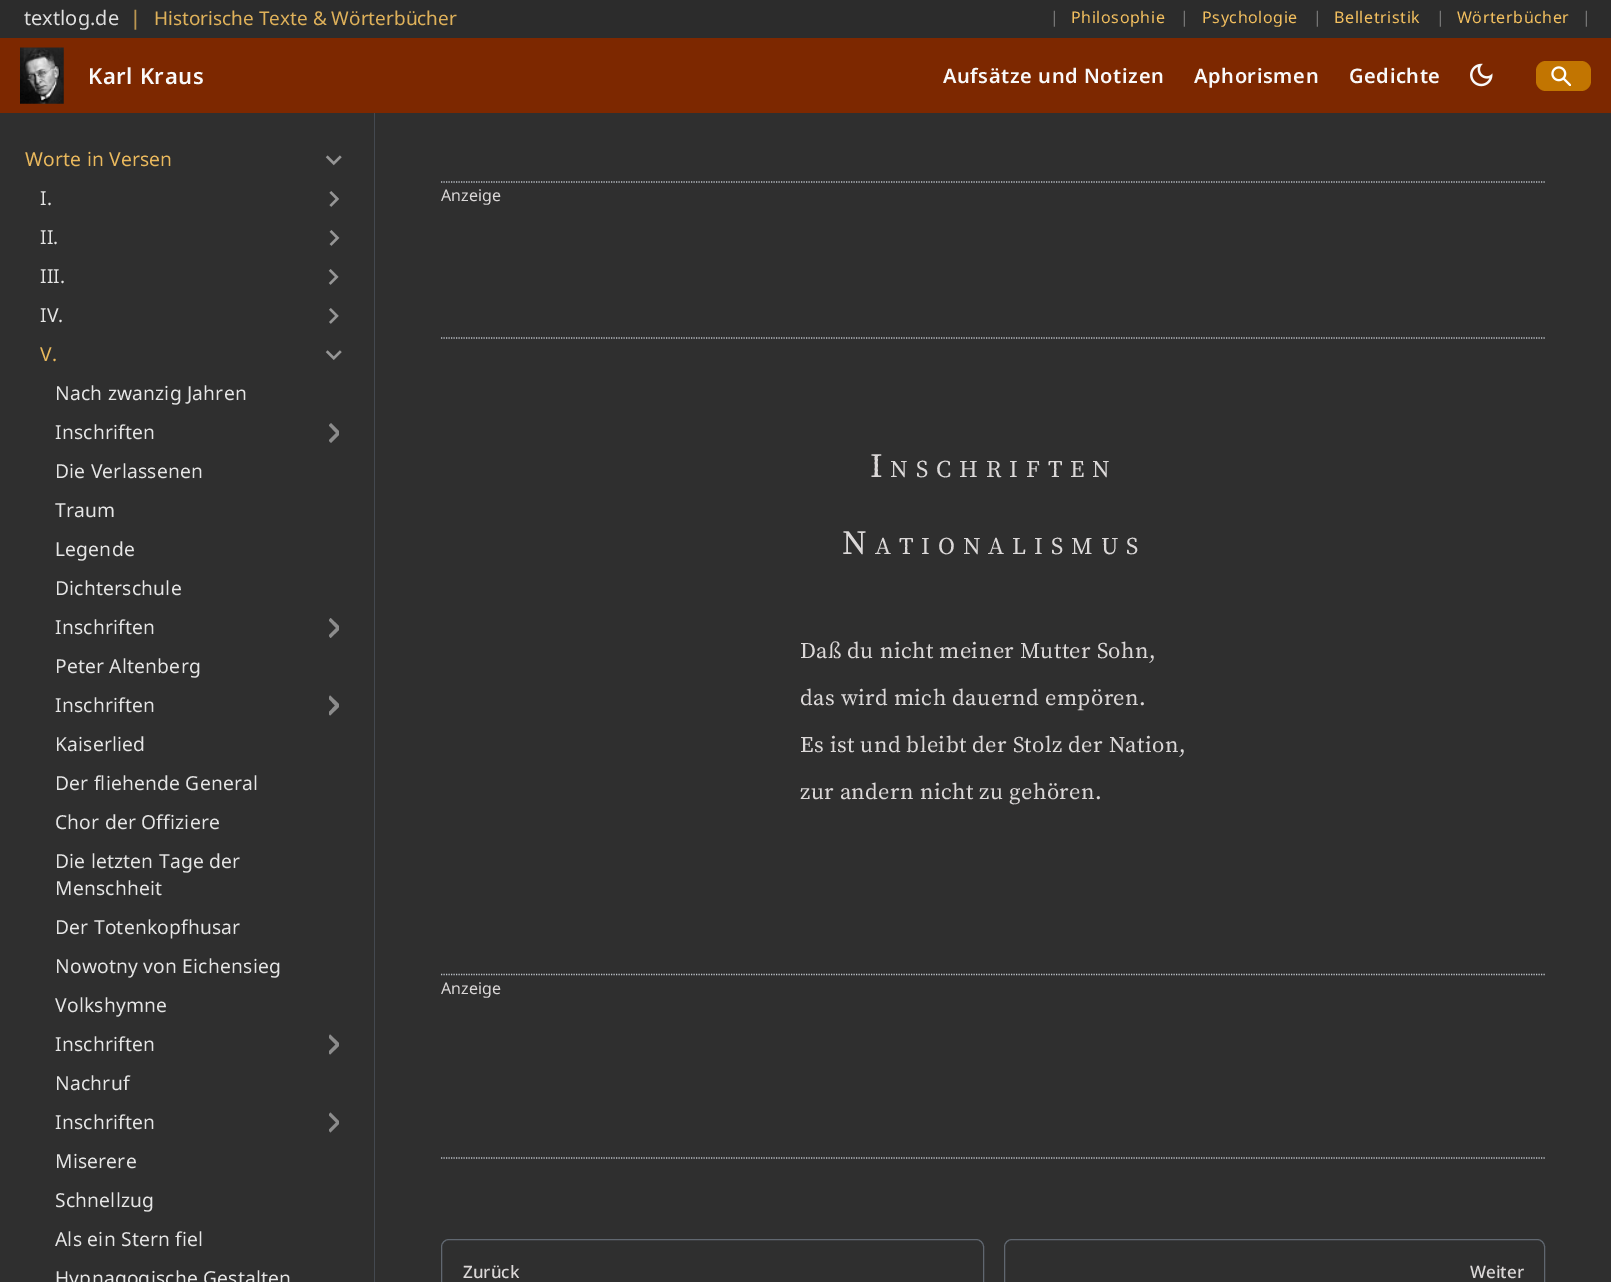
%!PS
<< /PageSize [1611 1282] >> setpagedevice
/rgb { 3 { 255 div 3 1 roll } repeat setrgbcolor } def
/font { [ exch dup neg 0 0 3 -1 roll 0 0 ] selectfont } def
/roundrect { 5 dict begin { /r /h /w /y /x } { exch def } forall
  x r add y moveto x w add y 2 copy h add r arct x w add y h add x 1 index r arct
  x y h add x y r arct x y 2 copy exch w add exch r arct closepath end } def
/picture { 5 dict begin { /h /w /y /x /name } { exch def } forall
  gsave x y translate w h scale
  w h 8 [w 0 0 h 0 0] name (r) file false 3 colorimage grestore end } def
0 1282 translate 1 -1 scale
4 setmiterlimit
47 47 47 rgb
0 0 1611 1282 rectfill
[
  [0 0 1611 38 44 44 44]
  [374 111 1 1171 68 73 80]
  [0 38 1611 75 125 40 0]
] { aload pop rgb rectfill } forall
(img/1.rgb) 20 47 44 57 picture
(img/2.rgb) 1470 63 23 24 picture
194 117 1 rgb
1536 61 55 30 10 roundrect fill
(img/3.rgb) 1551 66 20 20 picture
(img/4.rgb) 325 155 17 11 picture
(img/5.rgb) 329 191 10 16 picture
(img/6.rgb) 329 230 11 16 picture
(img/7.rgb) 328 269 11 16 picture
(img/8.rgb) 329 308 10 16 picture
(img/9.rgb) 325 350 17 10 picture
140 140 140 rgb
329 425 moveto 329 425.5 lineto 336 433 lineto 329 440 lineto 329 441 lineto 331 443 lineto 339 435 lineto 339 431 lineto 331 423 lineto closepath fill
329 620 moveto 329 620.5 lineto 336 628 lineto 329 635 lineto 329 636 lineto 330.5 638 lineto 339 630 lineto 339 626 lineto 330.5 618 lineto closepath fill
329 699 moveto 335 705.5 lineto 329 712 lineto 329 714.5 lineto 330 715.5 lineto 339 707 lineto 339 704 lineto 330 695.5 lineto 329 697 lineto closepath fill
329 1038 moveto 335.5 1044.5 lineto 329 1051 lineto 329 1053.5 lineto 330 1054.5 lineto 339 1046 lineto 339 1043 lineto 330 1034.5 lineto 329 1036 lineto closepath fill
329 1115.5 moveto 336 1122.5 lineto 329 1129.5 lineto 329 1131 lineto 330.5 1132.5 lineto 339 1124 lineto 339 1121 lineto 330.5 1112.5 lineto 329 1114 lineto closepath fill
190 195 201 rgb
1.2 setlinewidth
[1.25 1.25] 0 setdash
441 182 moveto 1545 182 lineto stroke
441 338 moveto 1545 338 lineto stroke
441 974.5 moveto 1545 974.5 lineto stroke
441 1158 moveto 1545 1158 lineto stroke
96 103 112 rgb
1 setlinewidth
[] 0 setdash
441.5 1239.5 542 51 7.5 roundrect stroke
1004.5 1239.5 540 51 7.5 roundrect stroke
/NotoSans-Regular 20 font
223 223 223 rgb
24 25 moveto (textlog.de) show
/DejaVuSans-Regular 20 font
187 150 81 rgb
127 25 moveto (❘) show
/NotoSans-Regular 19 font
223 177 90 rgb
154 25 moveto (Historische Texte & Wörterbücher) show
/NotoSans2-Regular 16 font
117 117 117 rgb
1050 23 moveto 0.6 0 (|) ashow
244 192 95 rgb
1071 23 moveto 0.6 0 (Philosophie) ashow
117 117 117 rgb
1180 23 moveto 0.6 0 (|) ashow
244 192 95 rgb
1202 23 moveto 0.6 0 (Psychologie) ashow
117 117 117 rgb
1313 23 moveto 0.6 0 (|) ashow
244 192 95 rgb
1334 23 moveto 0.6 0 (Belletristik) ashow
117 117 117 rgb
1436 23 moveto 0.6 0 (|) ashow
244 192 95 rgb
1457 23 moveto 0.6 0 (Wörterbücher) ashow
117 117 117 rgb
1582 23 moveto 0.6 0 (|) ashow
/NotoSans-SemiBold 22 font
249 249 249 rgb
88 84 moveto 0.6 0 (Karl Kraus) ashow
/NotoSans-SemiBold 20 font
943 83 moveto 0.6 0 (Aufsätze und Notizen) ashow
1194 83 moveto 0.6 0 (Aphorismen) ashow
1349 83 moveto 0.6 0 (Gedichte) ashow
/NotoSans2-Regular 19.25 font
234 185 93 rgb
25 166 moveto 0.2 0 (Worte in Versen) ashow
229 229 229 rgb
40 205 moveto 0.2 0 (I.) ashow
40 244 moveto 0.2 0 (II.) ashow
40 283 moveto 0.2 0 (III.) ashow
40 322 moveto 0.2 0 (IV.) ashow
234 185 93 rgb
40 361 moveto 0.2 0 (V.) ashow
229 229 229 rgb
55 400 moveto 0.2 0 (Nach zwanzig Jahren) ashow
55 439 moveto 0.2 0 (Inschriften) ashow
55 478 moveto 0.2 0 (Die Verlassenen) ashow
55 517 moveto 0.2 0 (Traum) ashow
55 556 moveto 0.2 0 (Legende) ashow
55 595 moveto 0.2 0 (Dichterschule) ashow
55 634 moveto 0.2 0 (Inschriften) ashow
55 673 moveto 0.2 0 (Peter Altenberg) ashow
55 712 moveto 0.2 0 (Inschriften) ashow
55 751 moveto 0.2 0 (Kaiserlied) ashow
55 790 moveto 0.2 0 (Der fliehende General) ashow
55 829 moveto 0.2 0 (Chor der Offiziere) ashow
55 868 moveto 0.2 0 (Die letzten Tage der) ashow
55 895 moveto 0.2 0 (Menschheit) ashow
55 934 moveto 0.2 0 (Der Totenkopfhusar) ashow
55 973 moveto 0.2 0 (Nowotny von Eichensieg) ashow
55 1012 moveto 0.2 0 (Volkshymne) ashow
55 1051 moveto 0.2 0 (Inschriften) ashow
55 1090 moveto 0.2 0 (Nachruf) ashow
55 1129 moveto 0.2 0 (Inschriften) ashow
55 1168 moveto 0.2 0 (Miserere) ashow
55 1207 moveto 0.2 0 (Schnellzug) ashow
55 1246 moveto 0.2 0 (Als ein Stern fiel) ashow
55 1285 moveto 0.2 0 (Hypnagogische Gestalten) ashow
/NotoSans-Regular 16 font
219 216 216 rgb
441 201 moveto (Anzeige) show
/SourceSerifPro-Regular 34 font
870 477 moveto 7.9 0 (I) ashow
/SourceSerifPro-Regular 24 font
890 477 moveto 7.9 0 (NSCHRIFTEN) ashow
/SourceSerifPro-Regular 34 font
842 554 moveto 7.9 0 (N) ashow
/SourceSerifPro-Regular 24 font
875 554 moveto 7.9 0 (ATIONALISMUS) ashow
/SourceSerifPro-Regular 22.4 font
800 658 moveto 0.4 0 (Daß du nicht meiner Mutter Sohn,) ashow
800 705 moveto 0.4 0 (das wird mich dauernd empören.) ashow
800 752 moveto 0.4 0 (Es ist und bleibt der Stolz der Nation,) ashow
800 799 moveto 0.4 0 (zur andern nicht zu gehören.) ashow
/NotoSans-Regular 16 font
441 994 moveto (Anzeige) show
/NotoSans-Medium 17 font
463 1278 moveto (Zurück) show
1470 1278 moveto (Weiter) show
showpage
